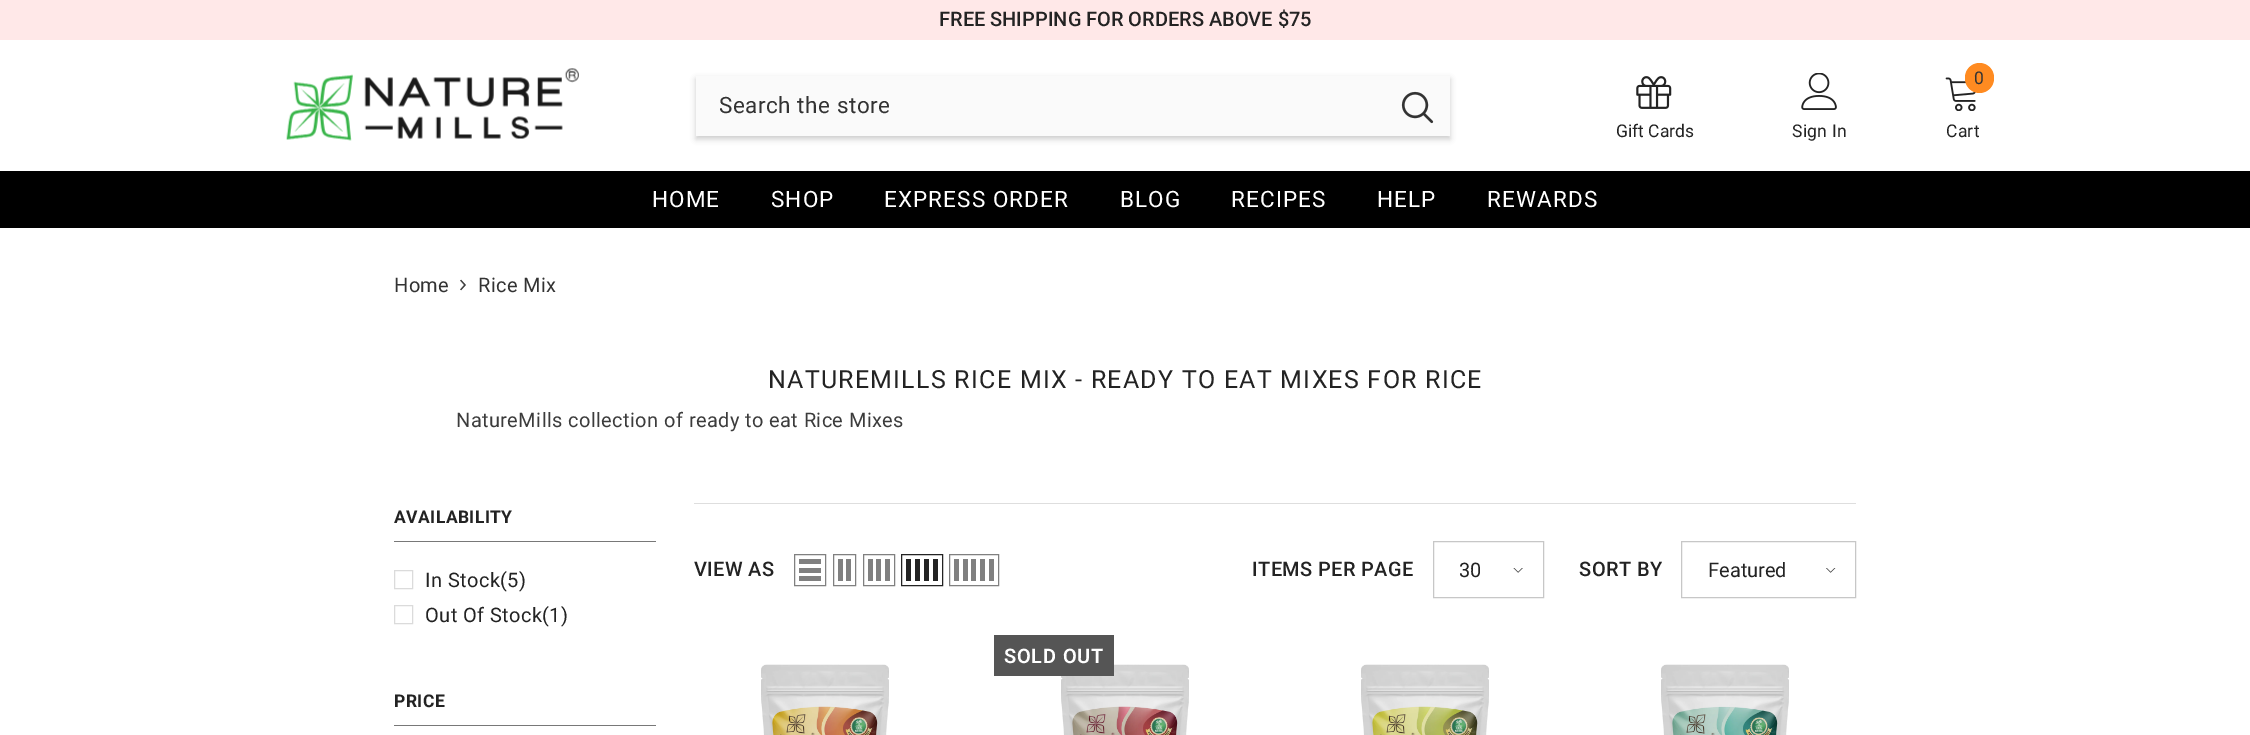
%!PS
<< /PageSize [2250 735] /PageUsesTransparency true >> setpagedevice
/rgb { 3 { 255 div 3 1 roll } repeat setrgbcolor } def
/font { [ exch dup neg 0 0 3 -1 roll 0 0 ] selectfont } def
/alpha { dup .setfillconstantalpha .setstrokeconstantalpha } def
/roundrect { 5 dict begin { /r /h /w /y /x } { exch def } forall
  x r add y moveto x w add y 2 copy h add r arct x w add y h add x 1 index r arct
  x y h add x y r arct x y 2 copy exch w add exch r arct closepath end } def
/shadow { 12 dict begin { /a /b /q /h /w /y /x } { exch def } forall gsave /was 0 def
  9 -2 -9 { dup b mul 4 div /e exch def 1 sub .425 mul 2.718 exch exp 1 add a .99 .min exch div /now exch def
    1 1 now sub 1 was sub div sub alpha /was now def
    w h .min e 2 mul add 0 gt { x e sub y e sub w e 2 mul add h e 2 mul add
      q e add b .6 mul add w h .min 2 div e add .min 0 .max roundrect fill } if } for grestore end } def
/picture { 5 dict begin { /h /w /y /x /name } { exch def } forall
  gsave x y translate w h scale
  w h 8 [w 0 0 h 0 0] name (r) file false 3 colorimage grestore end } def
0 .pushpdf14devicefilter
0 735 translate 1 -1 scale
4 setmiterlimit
255 255 255 rgb
0 0 2250 735 rectfill
255 232 232 rgb
0 0 2250 40 rectfill
(img/1.rgb) 286 68 293 73 picture
0 0 0 rgb
696 79 754 60 0 3 0.2 shadow
250 250 250 rgb
696 76 754 60 rectfill
(img/2.rgb) 1401 91 33 33 picture
(img/3.rgb) 1945 77 31 34 picture
255 139 33 rgb
1965 63 29 30 14.5 roundrect fill
(img/4.rgb) 1636 76 36 33 picture
(img/5.rgb) 1801 73 36 37 picture
0 0 0 rgb
0 171 2250 57 rectfill
(img/6.rgb) 460 279 6 12 picture
120 120 120 rgb
394 541 262 1 rectfill
219 219 219 rgb
394.5 570.5 18 18 rectstroke
394.5 605.5 18 18 rectstroke
120 120 120 rgb
394 725 262 1 rectfill
222 222 222 rgb
694 503 1162 1 rectfill
128 128 128 rgb
794.5 554.5 31 31 rectstroke
[
  [799 576 22 5 128 128 128]
  [799 568 22 5 128 128 128]
  [799 559 22 5 128 128 128]
] { aload pop rgb rectfill } forall
833.5 554.5 22 31 rectstroke
846 559 5 22 rectfill
838 559 5 22 rectfill
863.5 554.5 31 31 rectstroke
[
  [885 559 5 22 128 128 128]
  [876 559 5 22 128 128 128]
  [868 559 5 22 128 128 128]
] { aload pop rgb rectfill } forall
35 35 35 rgb
901.5 554.5 41 31 rectstroke
[
  [933 559 5 22 35 35 35]
  [924 559 5 22 35 35 35]
  [915 559 5 22 35 35 35]
  [906 559 5 22 35 35 35]
] { aload pop rgb rectfill } forall
128 128 128 rgb
949.5 554.5 49 31 rectstroke
[
  [989 559 5 22 128 128 128]
  [980 559 5 22 128 128 128]
  [971 559 5 22 128 128 128]
  [963 559 5 22 128 128 128]
  [954 559 5 22 128 128 128]
] { aload pop rgb rectfill } forall
199 199 199 rgb
1433.5 541.5 110 56 rectstroke
(img/7.rgb) 1513 568 10 5 picture
1681.5 541.5 174 56 rectstroke
(img/8.rgb) 1826 568 10 5 picture
(img/9.rgb) 1061 664 128 71 picture
85 85 85 rgb
994 635 120 41 rectfill
(img/10.rgb) 761 664 128 71 picture
(img/11.rgb) 1361 664 128 71 picture
(img/12.rgb) 1661 664 128 71 picture
/Roboto-Medium 20 font
35 35 35 rgb
939 26 moveto (FREE SHIPPING FOR ORDERS ABOVE $75) show
/Roboto-Regular 22.5 font
51 51 51 rgb
719 113 moveto 0.5 0 (Search the store) ashow
/Roboto-Regular 17.5 font
1974 84 moveto (0) show
35 35 35 rgb
1946 137 moveto 0.25 0 (Cart) ashow
1616 137 moveto (Gift Cards) show
1792 137 moveto 0.25 0 (Sign In) ashow
/Roboto-Regular 22.5 font
255 255 255 rgb
652 207 moveto 1.1 0 (HOME) ashow
771 207 moveto 1.1 0 (SHOP) ashow
884 207 moveto 1.1 0 (EXPRESS ORDER) ashow
1120 207 moveto 1.1 0 (BLOG) ashow
1231 207 moveto 1.1 0 (RECIPES) ashow
1377 207 moveto 1.1 0 (HELP) ashow
1487 207 moveto 1.1 0 (REWARDS) ashow
/Roboto-Regular 20 font
51 51 51 rgb
394 292 moveto 0.4 0 (Home) ashow
478 292 moveto 0.4 0 (Rice Mix) ashow
/Roboto-Regular 25 font
35 35 35 rgb
768 388 moveto 1.25 0 (NATUREMILLS RICE MIX - READY TO EAT MIXES FOR RICE) ashow
/Roboto-Regular 20 font
60 60 60 rgb
456 427 moveto 0.4 0 (NatureMills collection of ready to eat Rice Mixes) ashow
/Roboto-Bold 17.5 font
35 35 35 rgb
394 523 moveto 0.4 0 (AVAILABILITY) ashow
/Roboto-Regular 20 font
425 587 moveto 0.4 0 (In Stock\(5\)) ashow
425 622 moveto 0.4 0 (Out Of Stock\(1\)) ashow
/Roboto-Bold 17.5 font
394 707 moveto 0.4 0 (PRICE) ashow
/Roboto-Medium 20 font
694 576 moveto 0.4 0 (VIEW AS) ashow
1252 576 moveto 0.4 0 (ITEMS PER PAGE) ashow
/Roboto-Regular 20 font
1459 577 moveto (30) show
/Roboto-Medium 20 font
1579 576 moveto 0.4 0 (SORT BY) ashow
/Roboto-Regular 20 font
1708 577 moveto (Featured) show
/Roboto-SemiBold 20 font
255 255 255 rgb
1004 663 moveto 0.75 0 (SOLD OUT) ashow
.poppdf14devicefilter showpage
